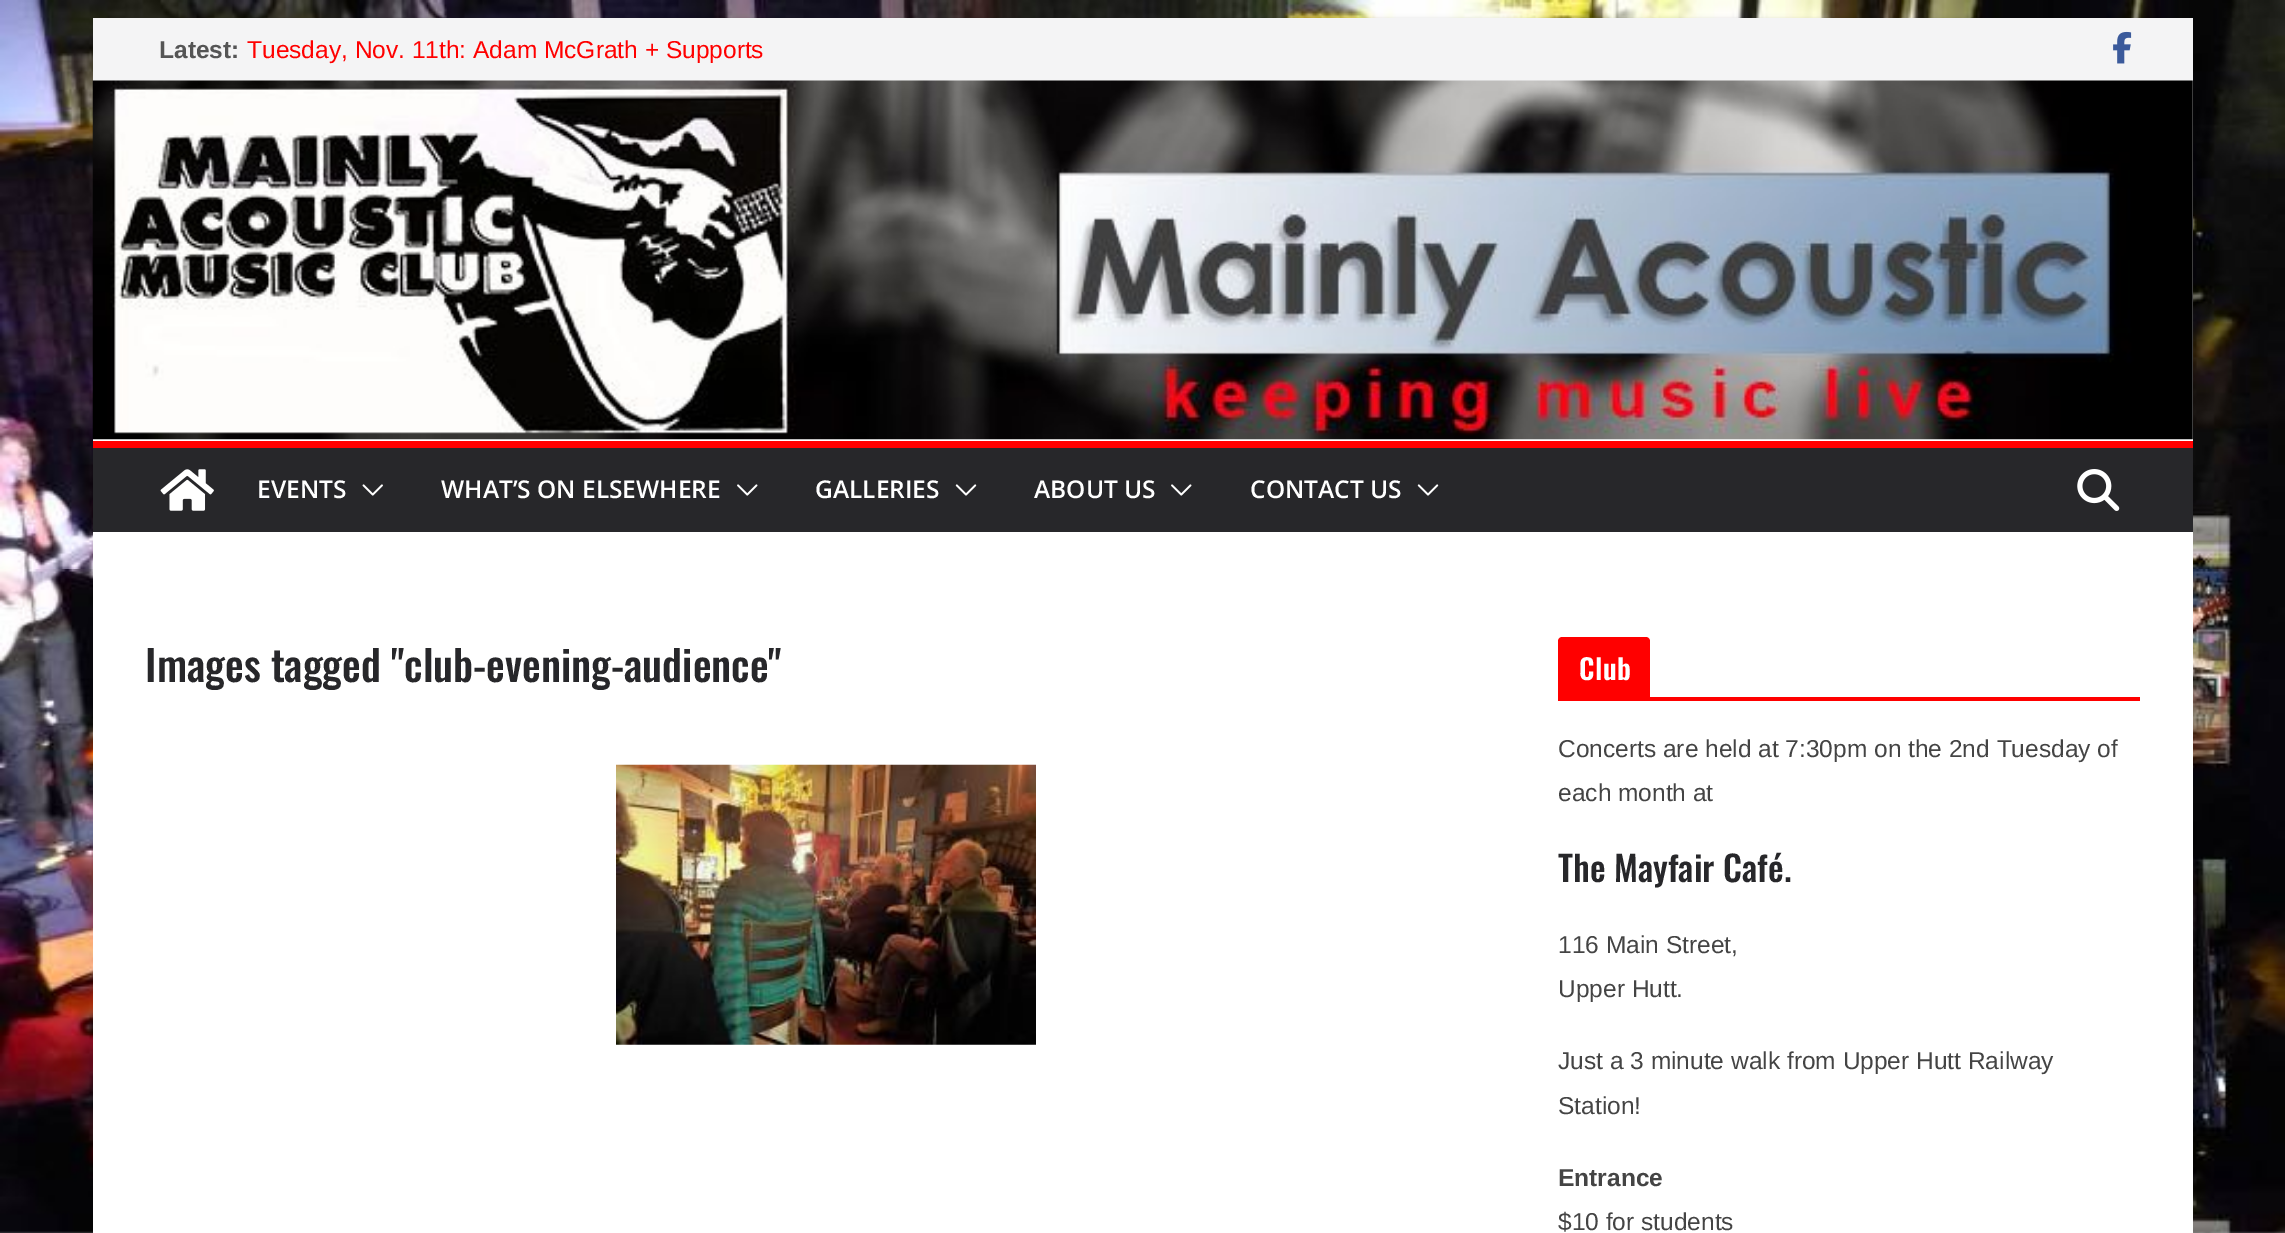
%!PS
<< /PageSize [2285 1233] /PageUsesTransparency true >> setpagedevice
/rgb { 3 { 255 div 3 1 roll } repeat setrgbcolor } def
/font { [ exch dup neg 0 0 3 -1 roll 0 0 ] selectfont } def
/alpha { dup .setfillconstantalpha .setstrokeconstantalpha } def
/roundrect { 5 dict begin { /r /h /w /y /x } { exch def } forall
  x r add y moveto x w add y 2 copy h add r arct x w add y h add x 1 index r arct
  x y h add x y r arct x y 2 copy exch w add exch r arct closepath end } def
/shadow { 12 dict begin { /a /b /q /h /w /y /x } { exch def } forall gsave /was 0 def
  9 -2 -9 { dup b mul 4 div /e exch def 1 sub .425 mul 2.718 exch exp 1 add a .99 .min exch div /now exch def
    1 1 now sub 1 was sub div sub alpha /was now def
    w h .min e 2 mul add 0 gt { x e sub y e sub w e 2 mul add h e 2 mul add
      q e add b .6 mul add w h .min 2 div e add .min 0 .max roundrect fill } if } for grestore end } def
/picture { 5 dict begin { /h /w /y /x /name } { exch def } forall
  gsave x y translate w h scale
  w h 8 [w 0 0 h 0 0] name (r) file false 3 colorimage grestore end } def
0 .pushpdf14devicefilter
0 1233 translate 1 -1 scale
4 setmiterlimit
255 255 255 rgb
0 0 2285 1233 rectfill
(img/1.rgb) 0 0 2285 1233 picture
93 81 2100 360 rectfill
0 0 0 rgb
93 18 2100 63 0 2 0.1 shadow
244 244 245 rgb
93 18 2100 63 rectfill
(img/2.rgb) 2113 31 19 33 picture
(img/3.rgb) 92 80 2101 360 picture
39 39 42 rgb
93 448 2100 84 rectfill
255 0 0 rgb
93 441 2100 7 rectfill
(img/4.rgb) 160 469 54 42 picture
(img/5.rgb) 362 484 21 12 picture
(img/6.rgb) 737 484 21 12 picture
(img/7.rgb) 955 484 22 12 picture
(img/6.rgb) 1171 484 21 12 picture
(img/7.rgb) 1417 484 22 12 picture
(img/8.rgb) 2077 469 43 42 picture
255 255 255 rgb
93 532 2100 701 rectfill
(img/9.rgb) 616 764 420 281 picture
255 0 0 rgb
1558 697 582 4 rectfill
1562 637 moveto 1646 637 lineto 1648 637 1650 639 1650 641 curveto 1650 697 lineto 1558 697 lineto 1558 641 lineto 1558 639 1560 637 1562 637 curveto closepath fill
/LiberationSans-Bold 24.5 font
85 85 85 rgb
159 58 moveto (Latest:) show
/LiberationSans-Regular 24.5 font
255 0 0 rgb
247 58 moveto (Tuesday, Nov. 11th: Adam McGrath + Supports) show
/OpenSans-SemiBold 24.5 font
255 255 255 rgb
[
  [(EVENTS) 257 498]
  [(WHAT’S ON ELSEWHERE) 441 498]
  [(GALLERIES) 815 498]
  [(ABOUT US) 1034 498]
  [(CONTACT US) 1250 498]
] { aload pop moveto show } forall
/Oswald-Medium 42 font
39 39 42 rgb
145 682 moveto (Images tagged "club-evening-audience") show
/Oswald-SemiBold 28 font
255 255 255 rgb
1579 680 moveto 0.5 0 (Club) ashow
/LiberationSans-Regular 24.5 font
68 68 68 rgb
1558 757 moveto (Concerts are held at 7:30pm on the 2nd Tuesday of) show
1558 801 moveto (each month at) show
/Oswald-Medium 35 font
39 39 42 rgb
1558 882 moveto (The Mayfair Café.) show
/LiberationSans-Regular 24.5 font
68 68 68 rgb
[
  [(116 Main Street,) 1558 953]
  [(Upper Hutt.) 1558 997]
  [(Just a 3 minute walk from Upper Hutt Railway) 1558 1069]
  [(Station!) 1558 1114]
] { aload pop moveto show } forall
/LiberationSans-Bold 24.5 font
1558 1186 moveto (Entrance) show
/LiberationSans-Regular 24.5 font
1558 1230 moveto ($10 for students) show
.poppdf14devicefilter showpage
